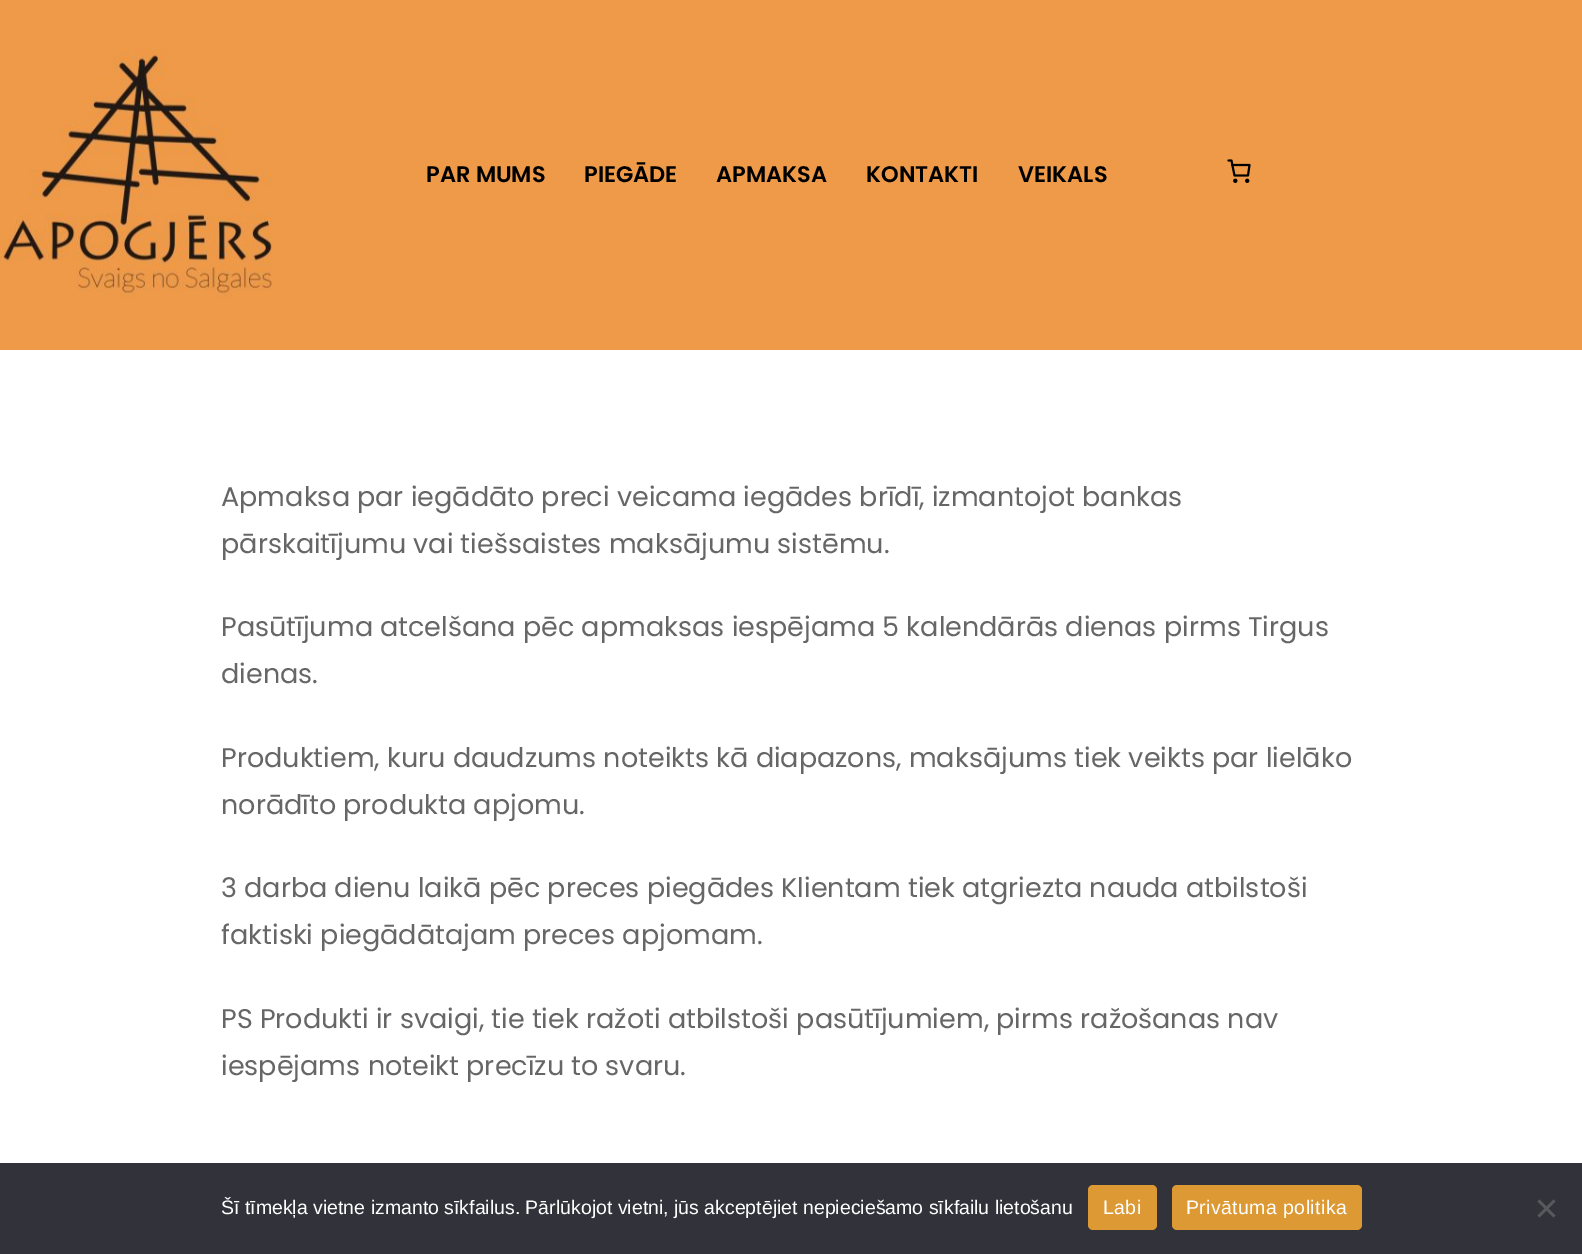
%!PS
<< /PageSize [1582 1254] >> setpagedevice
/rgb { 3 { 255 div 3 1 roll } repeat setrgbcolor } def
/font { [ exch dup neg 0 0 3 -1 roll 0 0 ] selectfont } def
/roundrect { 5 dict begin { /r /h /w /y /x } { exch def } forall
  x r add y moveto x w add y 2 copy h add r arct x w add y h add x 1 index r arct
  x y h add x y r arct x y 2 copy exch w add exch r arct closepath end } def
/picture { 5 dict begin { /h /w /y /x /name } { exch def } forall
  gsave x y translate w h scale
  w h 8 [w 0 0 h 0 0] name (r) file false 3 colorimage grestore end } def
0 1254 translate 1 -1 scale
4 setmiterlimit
255 255 255 rgb
0 0 1582 1254 rectfill
239 154 73 rgb
0 0 1582 350 rectfill
(img/1.rgb) 0 49 272 250 picture
(img/2.rgb) 1227 159 24 24 picture
50 50 58 rgb
0 1163 1582 91 rectfill
221 153 51 rgb
1088 1185 69 45 5 roundrect fill
1172 1185 190 45 5 roundrect fill
89 89 93 rgb
1553.5 1199.5 moveto 1555.5 1201.5 lineto 1539.5 1217.5 lineto 1537.5 1215.5 lineto closepath fill
1537.5 1201.5 moveto 1539.5 1199.5 lineto 1555.5 1215.5 lineto 1553.5 1217.5 lineto closepath fill
/Poppins-SemiBold 22.5 font
0 0 0 rgb
[
  [(PAR MUMS) 426 182]
  [(PIEGĀDE) 584 182]
  [(APMAKSA) 716 182]
  [(KONTAKTI) 866 182]
  [(VEIKALS) 1018 182]
] { aload pop moveto show } forall
/Poppins-Regular 27 font
102 102 102 rgb
[
  [(Apmaksa par iegādāto preci veicama iegādes brīdī, izmantojot bankas) 221 506]
  [(pārskaitījumu vai tiešsaistes maksājumu sistēmu.) 221 553]
  [(Pasūtījuma atcelšana pēc apmaksas iespējama 5 kalendārās dienas pirms Tirgus) 221 636]
  [(dienas.) 221 683]
  [(Produktiem, kuru daudzums noteikts kā diapazons, maksājums tiek veikts par lielāko) 221 767]
  [(norādīto produkta apjomu.) 221 814]
  [(3 darba dienu laikā pēc preces piegādes Klientam tiek atgriezta nauda atbilstoši) 221 897]
  [(faktiski piegādātajam preces apjomam.) 221 944]
  [(PS Produkti ir svaigi, tie tiek ražoti atbilstoši pasūtījumiem, pirms ražošanas nav) 221 1028]
  [(iespējams noteikt precīzu to svaru.) 221 1075]
] { aload pop moveto show } forall
/LiberationSans-Regular 19.5 font
255 255 255 rgb
221 1214 moveto (Šī tīmekļa vietne izmanto sīkfailus. Pārlūkojot vietni, jūs akceptējiet nepieciešamo sīkfailu lietošanu) show
1103 1214 moveto 0.4 0 (Labi) ashow
1186 1214 moveto 0.4 0 (Privātuma politika) ashow
showpage
